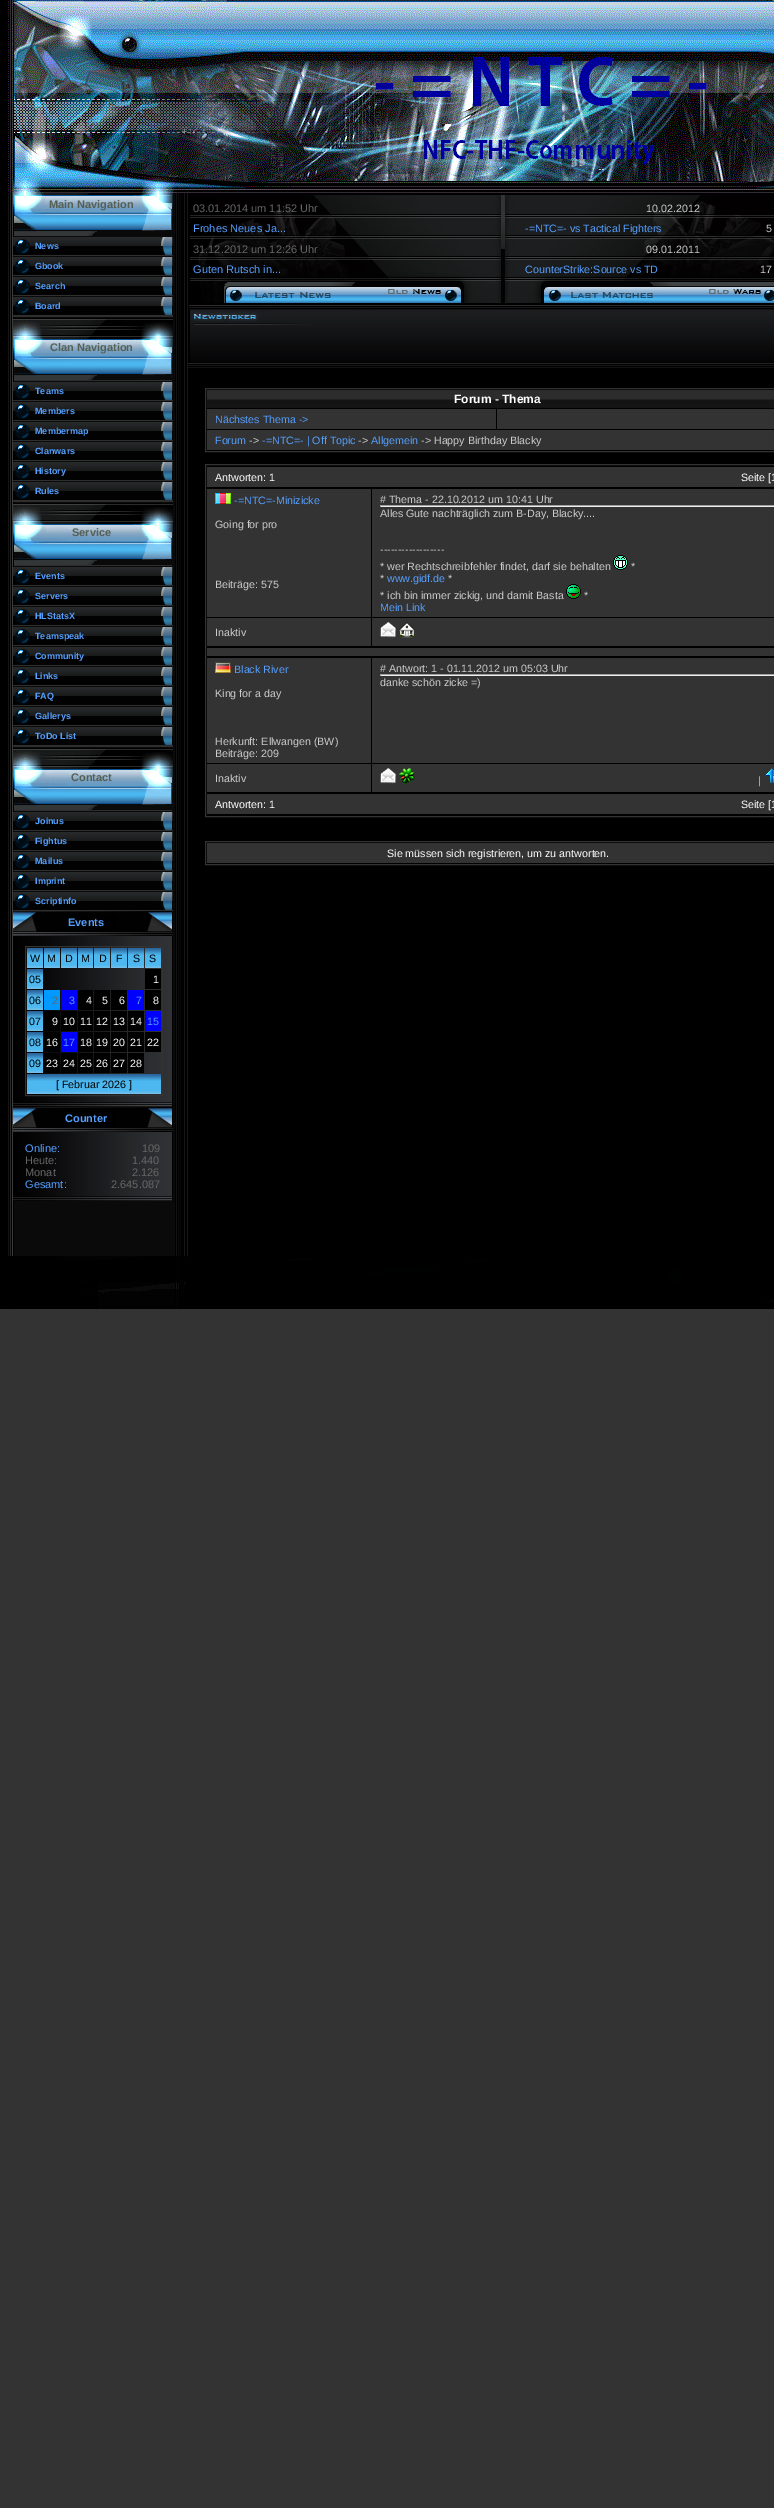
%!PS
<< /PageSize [774 2508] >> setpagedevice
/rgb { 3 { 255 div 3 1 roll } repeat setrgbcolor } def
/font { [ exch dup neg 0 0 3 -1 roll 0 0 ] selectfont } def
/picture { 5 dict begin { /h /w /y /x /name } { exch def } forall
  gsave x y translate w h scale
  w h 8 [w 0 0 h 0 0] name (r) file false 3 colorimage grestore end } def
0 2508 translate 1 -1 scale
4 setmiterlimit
51 51 51 rgb
0 0 774 2508 rectfill
(img/1.rgb) 0 0 774 193 picture
(img/2.rgb) 0 193 774 1116 picture
(img/3.rgb) 12 193 161 43 picture
(img/4.rgb) 13 237 160 19 picture
(img/4.rgb) 13 257 160 19 picture
(img/4.rgb) 13 277 160 19 picture
(img/4.rgb) 13 297 160 19 picture
(img/5.rgb) 12 316 161 65 picture
(img/4.rgb) 13 382 160 19 picture
(img/4.rgb) 13 402 160 19 picture
(img/4.rgb) 13 422 160 19 picture
(img/4.rgb) 13 442 160 19 picture
(img/4.rgb) 13 462 160 19 picture
(img/4.rgb) 13 482 160 19 picture
(img/5.rgb) 12 501 161 65 picture
(img/4.rgb) 13 567 160 19 picture
(img/4.rgb) 13 587 160 19 picture
(img/4.rgb) 13 607 160 19 picture
(img/4.rgb) 13 627 160 19 picture
(img/4.rgb) 13 647 160 19 picture
(img/4.rgb) 13 667 160 19 picture
(img/4.rgb) 13 687 160 19 picture
(img/4.rgb) 13 707 160 19 picture
(img/4.rgb) 13 727 160 19 picture
(img/5.rgb) 12 746 161 65 picture
(img/4.rgb) 13 812 160 19 picture
(img/4.rgb) 13 832 160 19 picture
(img/4.rgb) 13 852 160 19 picture
(img/4.rgb) 13 872 160 19 picture
(img/4.rgb) 13 892 160 19 picture
(img/6.rgb) 13 911 160 25 picture
(img/7.rgb) 14 936 159 165 picture
25.5 946.5 137 149 rectstroke
(img/8.rgb) 27 948 16 20 picture
(img/8.rgb) 44 948 16 20 picture
(img/8.rgb) 61 948 16 20 picture
(img/9.rgb) 78 948 15 20 picture
(img/8.rgb) 94 948 16 20 picture
(img/8.rgb) 111 948 16 20 picture
(img/8.rgb) 128 948 16 20 picture
(img/8.rgb) 145 948 16 20 picture
(img/8.rgb) 27 969 16 20 picture
0 0 0 rgb
145 969 16 20 rectfill
(img/8.rgb) 27 990 16 20 picture
[
  [44 990 16 20 0 153 255]
  [61 990 16 20 0 0 255]
  [78 990 15 20 0 0 0]
  [94 990 16 20 0 0 0]
  [111 990 16 20 0 0 0]
  [128 990 16 20 0 0 255]
  [145 990 16 20 0 0 0]
] { aload pop rgb rectfill } forall
(img/8.rgb) 27 1011 16 20 picture
[
  [44 1011 16 20 0 0 0]
  [61 1011 16 20 0 0 0]
  [78 1011 15 20 0 0 0]
  [94 1011 16 20 0 0 0]
  [111 1011 16 20 0 0 0]
  [128 1011 16 20 0 0 0]
  [145 1011 16 20 0 0 255]
] { aload pop rgb rectfill } forall
(img/8.rgb) 27 1032 16 20 picture
[
  [44 1032 16 20 0 0 0]
  [61 1032 16 20 0 0 255]
  [78 1032 15 20 0 0 0]
  [94 1032 16 20 0 0 0]
  [111 1032 16 20 0 0 0]
  [128 1032 16 20 0 0 0]
  [145 1032 16 20 0 0 0]
] { aload pop rgb rectfill } forall
(img/8.rgb) 27 1053 16 20 picture
[
  [44 1053 16 20 0 0 0]
  [61 1053 16 20 0 0 0]
  [78 1053 15 20 0 0 0]
  [94 1053 16 20 0 0 0]
  [111 1053 16 20 0 0 0]
  [128 1053 16 20 0 0 0]
] { aload pop rgb rectfill } forall
(img/10.rgb) 27 1074 134 20 picture
(img/11.rgb) 13 1101 160 6 picture
(img/6.rgb) 13 1107 160 25 picture
(img/12.rgb) 14 1132 159 63 picture
(img/11.rgb) 13 1195 160 6 picture
(img/13.rgb) 190 195 584 108 picture
(img/14.rgb) 188 305 586 63 picture
51 51 51 rgb
205.5 388.5 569 63 rectstroke
(img/15.rgb) 207 390 567 18 picture
[
  [207 409 289 20 51 51 51]
  [497 409 277 20 51 51 51]
  [207 430 567 20 51 51 51]
] { aload pop rgb rectfill } forall
205.5 464.5 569 352 rectstroke
207 467 567 20 rectfill
207 489 164 128 rectfill
(img/16.rgb) 215 493 16 11 picture
[
  [372 489 402 128 51 51 51]
  [380 505 394 1 159 159 159]
  [380 506 394 1 238 238 238]
  [380 505 1 2 159 159 159]
] { aload pop rgb rectfill } forall
(img/17.rgb) 613 555 15 15 picture
(img/18.rgb) 566 584 15 15 picture
51 51 51 rgb
207 618 164 28 rectfill
372 618 402 28 rectfill
(img/19.rgb) 380 622 16 16 picture
(img/20.rgb) 399 622 16 16 picture
207 648 567 8 rectfill
207 658 164 105 rectfill
(img/21.rgb) 215 662 16 11 picture
[
  [372 658 402 105 51 51 51]
  [380 674 394 1 159 159 159]
  [380 675 394 1 238 238 238]
  [380 674 1 2 159 159 159]
  [207 764 164 28 51 51 51]
  [372 764 402 28 51 51 51]
] { aload pop rgb rectfill } forall
(img/19.rgb) 380 768 16 16 picture
(img/22.rgb) 399 768 16 16 picture
(img/23.rgb) 765 768 9 15 picture
207 794 567 20 rectfill
205.5 841.5 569 23 rectstroke
207 843 567 20 rectfill
(img/24.rgb) 8 1256 766 53 picture
/LiberationSans-Bold 11 font
85 95 85 rgb
49 208 moveto (Main Navigation) show
/LiberationSans-Bold 9 font
85 159 255 rgb
[
  [(News) 35 249]
  [(Gbook) 35 269]
  [(Search) 35 289]
  [(Board) 35 309]
] { aload pop moveto show } forall
/LiberationSans-Bold 11 font
85 95 85 rgb
50 351 moveto (Clan Navigation) show
/LiberationSans-Bold 9 font
85 159 255 rgb
[
  [(Teams) 35 394]
  [(Members) 35 414]
  [(Membermap) 35 434]
  [(Clanwars) 35 454]
  [(History) 35 474]
  [(Rules) 35 494]
] { aload pop moveto show } forall
/LiberationSans-Bold 11 font
85 95 85 rgb
72 536 moveto (Service) show
/LiberationSans-Bold 9 font
85 159 255 rgb
[
  [(Events) 35 579]
  [(Servers) 35 599]
  [(HLStatsX) 35 619]
  [(Teamspeak) 35 639]
  [(Community) 35 659]
  [(Links) 35 679]
  [(FAQ) 35 699]
  [(Gallerys) 35 719]
  [(ToDo List) 35 739]
] { aload pop moveto show } forall
/LiberationSans-Bold 11 font
85 95 85 rgb
71 781 moveto (Contact) show
/LiberationSans-Bold 9 font
85 159 255 rgb
[
  [(Joinus) 35 824]
  [(Fightus) 35 844]
  [(Mailus) 35 864]
  [(Imprint) 35 884]
  [(Scriptinfo) 35 904]
] { aload pop moveto show } forall
/LiberationSans-Bold 11 font
68 926 moveto (Events) show
/LiberationSans-Regular 10.7 font
0 0 0 rgb
[
  [(W) 30 962]
  [(M) 47 962]
  [(D) 65 962]
  [(M) 81 962]
  [(D) 99 962]
  [(F) 116 962]
  [(S) 133 962]
  [(S) 149 962]
  [(05) 29 983]
] { aload pop moveto show } forall
255 255 255 rgb
153 983 moveto (1) show
0 0 0 rgb
29 1004 moveto (06) show
102 102 102 rgb
52 1004 moveto (2) show
85 159 255 rgb
69 1004 moveto (3) show
255 255 255 rgb
[
  [(4) 86 1004]
  [(5) 102 1004]
  [(6) 119 1004]
] { aload pop moveto show } forall
85 159 255 rgb
136 1004 moveto (7) show
255 255 255 rgb
153 1004 moveto (8) show
0 0 0 rgb
29 1025 moveto (07) show
255 255 255 rgb
[
  [(9) 52 1025]
  [(10) 63 1025]
  [(11) 80 1025]
  [(12) 96 1025]
  [(13) 113 1025]
  [(14) 130 1025]
] { aload pop moveto show } forall
85 159 255 rgb
147 1025 moveto (15) show
0 0 0 rgb
29 1046 moveto (08) show
255 255 255 rgb
46 1046 moveto (16) show
85 159 255 rgb
63 1046 moveto (17) show
255 255 255 rgb
[
  [(18) 80 1046]
  [(19) 96 1046]
  [(20) 113 1046]
  [(21) 130 1046]
  [(22) 147 1046]
] { aload pop moveto show } forall
0 0 0 rgb
29 1067 moveto (09) show
255 255 255 rgb
[
  [(23) 46 1067]
  [(24) 63 1067]
  [(25) 80 1067]
  [(26) 96 1067]
  [(27) 113 1067]
  [(28) 130 1067]
] { aload pop moveto show } forall
0 0 0 rgb
56 1088 moveto ([ Februar 2026 ]) show
/LiberationSans-Bold 11 font
85 159 255 rgb
65 1122 moveto (Counter) show
/LiberationSans-Regular 11 font
25 1152 moveto (Online:) show
102 102 102 rgb
[
  [(109) 142 1152]
  [(Heute:) 25 1164]
  [(1.440) 132 1164]
  [(Monat) 25 1176]
  [(2.126) 132 1176]
] { aload pop moveto show } forall
85 159 255 rgb
25 1188 moveto (Gesamt:) show
102 102 102 rgb
111 1188 moveto (2.645.087) show
193 212 moveto (03.01.2014 um 11:52 Uhr) show
85 159 255 rgb
193 232 moveto (Frohes Neues Ja...) show
102 102 102 rgb
193 253 moveto (31.12.2012 um 12:26 Uhr) show
85 159 255 rgb
193 273 moveto (Guten Rutsch in...) show
/LiberationSans-Regular 10.7 font
204 204 204 rgb
646 212 moveto (10.02.2012) show
85 159 255 rgb
525 232 moveto (-=NTC=- vs Tactical Fighters) show
204 204 204 rgb
766 232 moveto (5) show
646 253 moveto (09.01.2011) show
85 159 255 rgb
525 273 moveto (CounterStrike:Source vs TD) show
204 204 204 rgb
760 273 moveto (17) show
/LiberationSans-Bold 12 font
255 255 255 rgb
454 403 moveto (Forum - Thema) show
/LiberationSans-Regular 10.7 font
85 159 255 rgb
215 423 moveto (Nächstes Thema ->) show
215 444 moveto (Forum) show
204 204 204 rgb
249 444 moveto (->) show
85 159 255 rgb
262 444 moveto (-=NTC=- | Off Topic) show
204 204 204 rgb
358 444 moveto (->) show
85 159 255 rgb
371 444 moveto (Allgemein) show
204 204 204 rgb
421 444 moveto (-> Happy Birthday Blacky) show
255 255 255 rgb
215 481 moveto (Antworten: 1) show
741 481 moveto (Seite [1) show
85 159 255 rgb
234 504 moveto (-=NTC=-Minizicke) show
204 204 204 rgb
[
  [(Going for pro) 215 528]
  [(Beiträge: 575) 215 588]
  [(# Thema - 22.10.2012 um 10:41 Uhr) 380 503]
  [(Alles Gute nachträglich zum B-Day, Blacky....) 380 517]
  [(------------------) 380 553]
  [(* wer Rechtschreibfehler findet, darf sie behalten) 380 570]
  [(*) 631 570]
  [(*) 380 582]
] { aload pop moveto show } forall
85 159 255 rgb
387 582 moveto (www.gidf.de) show
204 204 204 rgb
[
  [(*) 448 582]
  [(* ich bin immer zickig, und damit Basta) 380 599]
  [(*) 584 599]
] { aload pop moveto show } forall
85 159 255 rgb
380 611 moveto (Mein Link) show
204 204 204 rgb
215 636 moveto (Inaktiv) show
85 159 255 rgb
234 673 moveto (Black River) show
204 204 204 rgb
[
  [(King for a day) 215 697]
  [(Herkunft: Ellwangen \(BW\)) 215 745]
  [(Beiträge: 209) 215 757]
  [(# Antwort: 1 - 01.11.2012 um 05:03 Uhr) 380 672]
  [(danke schön zicke =\)) 380 686]
  [(Inaktiv) 215 782]
  [(|) 758 784]
] { aload pop moveto show } forall
255 255 255 rgb
[
  [(Antworten: 1) 215 808]
  [(Seite [1) 741 808]
  [(Sie müssen sich registrieren, um zu antworten.) 387 857]
] { aload pop moveto show } forall
showpage
